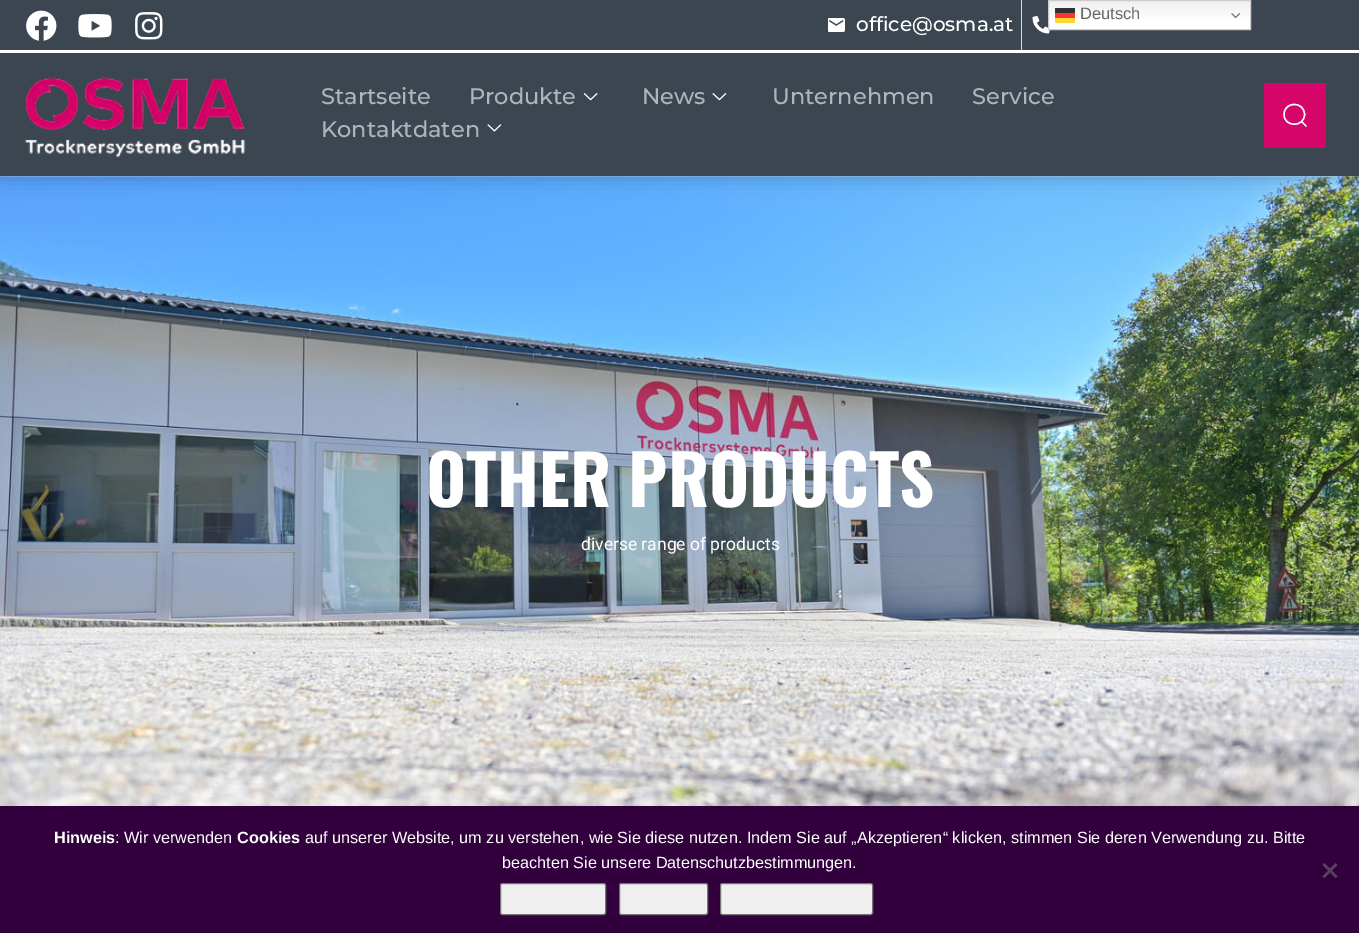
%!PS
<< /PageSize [1359 933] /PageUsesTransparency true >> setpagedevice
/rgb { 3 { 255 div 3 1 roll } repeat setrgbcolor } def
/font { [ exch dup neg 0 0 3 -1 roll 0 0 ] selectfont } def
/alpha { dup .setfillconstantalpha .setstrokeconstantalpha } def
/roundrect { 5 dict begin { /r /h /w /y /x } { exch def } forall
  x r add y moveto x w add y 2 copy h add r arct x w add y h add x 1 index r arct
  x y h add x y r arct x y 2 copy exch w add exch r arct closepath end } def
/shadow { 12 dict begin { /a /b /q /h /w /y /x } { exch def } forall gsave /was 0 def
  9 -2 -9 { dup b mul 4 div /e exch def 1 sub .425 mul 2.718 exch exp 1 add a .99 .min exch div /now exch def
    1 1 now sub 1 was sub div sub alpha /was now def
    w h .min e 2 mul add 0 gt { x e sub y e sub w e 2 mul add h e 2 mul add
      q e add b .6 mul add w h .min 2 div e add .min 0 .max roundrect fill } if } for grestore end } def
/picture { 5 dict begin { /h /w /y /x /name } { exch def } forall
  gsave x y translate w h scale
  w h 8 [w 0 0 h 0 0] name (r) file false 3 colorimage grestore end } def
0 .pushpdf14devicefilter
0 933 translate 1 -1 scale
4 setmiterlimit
255 255 255 rgb
0 0 1359 933 rectfill
(img/11.rgb) 0 176 1359 630 picture
0 0 0 rgb
0 1 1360 177 0 9.5 0.2 shadow
59 70 80 rgb
0 0 1359 50 rectfill
(img/6.rgb) 1032 16 18 18 picture
gsave 1049 1 moveto 1250 1 lineto 1250 29 lineto 1049 29 lineto closepath clip newpath
<< /ShadingType 2 /ColorSpace /DeviceRGB /Coords [1149 0 1149 30] /Extend [true true] /Function << /FunctionType 3 /Domain [0 1] /Functions [<< /FunctionType 2 /Domain [0 1] /C0 [0.937 0.937 0.937] /C1 [1 1 1] /N 1 >> << /FunctionType 2 /Domain [0 1] /C0 [1 1 1] /C1 [1 1 1] /N 1 >>] /Bounds [0.7] /Encode [0 1 0 1] >> >> shfill grestore
gsave 1055 13 moveto 1075 13 lineto 1075 18 lineto 1055 18 lineto closepath clip newpath
<< /ShadingType 2 /ColorSpace /DeviceRGB /Coords [1149 0 1149 30] /Extend [true true] /Function << /FunctionType 3 /Domain [0 1] /Functions [<< /FunctionType 2 /Domain [0 1] /C0 [0.988 0.188 0.188] /C1 [1 0.2 0.2] /N 1 >> << /FunctionType 2 /Domain [0 1] /C0 [1 0.2 0.2] /C1 [1 0.2 0.2] /N 1 >>] /Bounds [0.7] /Encode [0 1 0 1] >> >> shfill grestore
gsave 1055 8 moveto 1075 8 lineto 1075 13 lineto 1055 13 lineto closepath clip newpath
<< /ShadingType 2 /ColorSpace /DeviceRGB /Coords [1149 0 1149 30] /Extend [true true] /Function << /FunctionType 3 /Domain [0 1] /Functions [<< /FunctionType 2 /Domain [0 1] /C0 [0.188 0.188 0.188] /C1 [0.2 0.2 0.2] /N 1 >> << /FunctionType 2 /Domain [0 1] /C0 [0.2 0.2 0.2] /C1 [0.2 0.2 0.2] /N 1 >>] /Bounds [0.7] /Encode [0 1 0 1] >> >> shfill grestore
204 204 204 rgb
1048.5 0.5 202 29 rectstroke
(img/1.rgb) 1231 13 9 6 picture
255 214 51 rgb
1055 18 20 5 rectfill
255 255 255 rgb
0 50 1359 3 rectfill
(img/2.rgb) 26 10 31 31 picture
(img/3.rgb) 78 14 34 24 picture
(img/4.rgb) 135 12 28 28 picture
(img/5.rgb) 828 18 17 14 picture
221 221 221 rgb
1021 0 1 50 rectfill
59 70 80 rgb
0 53 1359 123 rectfill
(img/7.rgb) 25 77 221 81 picture
(img/8.rgb) 583 93 15 8 picture
(img/9.rgb) 712 93 15 8 picture
(img/10.rgb) 487 124 15 8 picture
214 5 105 rgb
1264 83 62 65 rectfill
255 255 255 rgb
1.4 setlinewidth
1 setlinecap
1 setlinejoin
1301.5 121.5 moveto 1306 126 lineto 1304.5 114.5 moveto 1304.5 127.5 1284 127.5 1284 114.5 curveto 1284 101 1304.5 101 1304.5 114.5 curveto closepath stroke
49 0 61 rgb
0 806 1359 127 rectfill
89 64 95 rgb
1335.5 863 moveto 1337.5 865 lineto 1324.5 878 lineto 1322.5 876.5 lineto closepath fill
1322.5 865 moveto 1324.5 863 lineto 1337.5 876.5 lineto 1335.5 878 lineto closepath fill
239 239 239 rgb
500.5 883.5 105 31 2 roundrect gsave fill grestore
118 118 118 rgb
1 setlinewidth
0 setlinecap
0 setlinejoin
stroke
239 239 239 rgb
619.5 883.5 88 31 2 roundrect gsave fill grestore
118 118 118 rgb
stroke
239 239 239 rgb
720.5 883.5 152 31 2 roundrect gsave fill grestore
118 118 118 rgb
stroke
/LiberationSans-Regular 16.5 font
102 102 102 rgb
1080 19 moveto (Deutsch) show
/Montserrat-Medium 20 font
255 255 255 rgb
856 31 moveto (office@osma.at) show
/Montserrat-Medium 22.5 font
177 181 185 rgb
[
  [(Startseite) 321 104]
  [(Produkte) 469 104]
  [(News) 642 104]
  [(Unternehmen) 772 104]
  [(Service) 972 104]
  [(Kontaktdaten) 321 137]
] { aload pop moveto show } forall
/Oswald-Bold 68.75 font
255 255 255 rgb
426 507 moveto (OTHER PRODUCTS) show
/Roboto-Regular 17.5 font
581 550 moveto (diverse range of products) show
/LiberationSans-Bold 16.25 font
54 843 moveto (Hinweis) show
/LiberationSans-Regular 16.25 font
115 843 moveto (: Wir verwenden) show
/LiberationSans-Bold 16.25 font
237 843 moveto (Cookies) show
/LiberationSans-Regular 16.25 font
305 843 moveto (auf unserer Website, um zu verstehen, wie Sie diese nutzen. Indem Sie auf „Akzeptieren“ klicken, stimmen Sie deren Verwendung zu. Bitte) show
502 868 moveto (beachten Sie unsere Datenschutzbestimmungen.) show
.poppdf14devicefilter showpage
